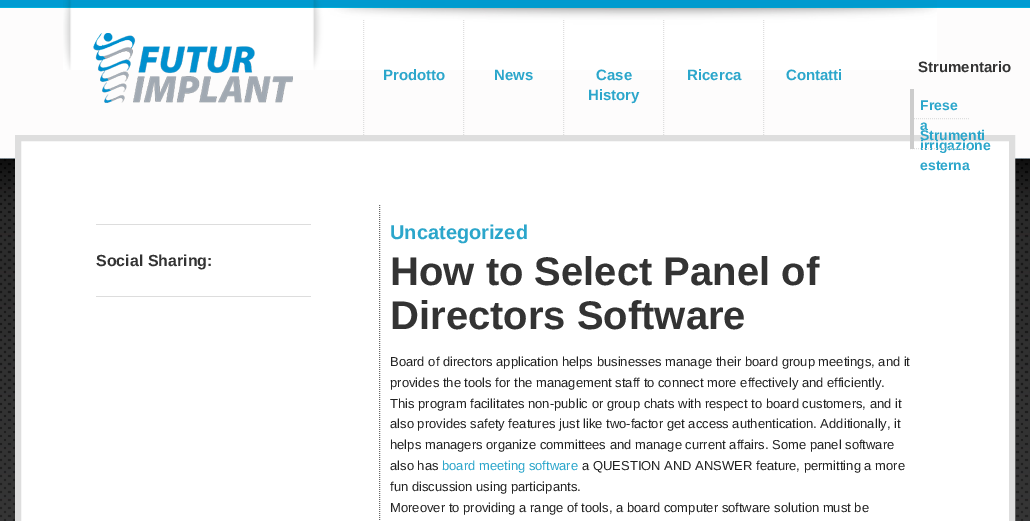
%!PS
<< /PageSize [1030 521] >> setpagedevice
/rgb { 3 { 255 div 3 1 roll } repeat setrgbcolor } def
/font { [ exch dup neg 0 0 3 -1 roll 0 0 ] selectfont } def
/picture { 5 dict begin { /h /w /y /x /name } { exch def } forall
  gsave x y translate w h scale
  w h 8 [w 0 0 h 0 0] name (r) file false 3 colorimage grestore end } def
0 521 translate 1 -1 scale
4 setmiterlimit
255 255 255 rgb
0 0 1030 521 rectfill
(img/1.rgb) 0 0 1030 521 picture
(img/2.rgb) 63 0 874 70 picture
(img/3.rgb) 93 33 200 70 picture
222 222 222 rgb
[1 1] 0 setdash
363.5 20 moveto 363.5 135 lineto stroke
463.5 20 moveto 463.5 135 lineto stroke
563.5 20 moveto 563.5 135 lineto stroke
663.5 20 moveto 663.5 135 lineto stroke
763.5 20 moveto 763.5 135 lineto stroke
255 255 255 rgb
18 138 moveto 1012 138 lineto 1012 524 lineto 18 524 lineto closepath gsave fill grestore
222 222 222 rgb
6 setlinewidth
[] 0 setdash
stroke
221 221 221 rgb
96 224 215 1 rectfill
96 296 215 1 rectfill
102 102 102 rgb
1 setlinewidth
[1 1] 0 setdash
379.5 205 moveto 379.5 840 lineto stroke
222 222 222 rgb
910 118.5 moveto 970 118.5 lineto stroke
204 204 204 rgb
910 89 4 30 rectfill
/LiberationSans-Bold 15 font
43 166 203 rgb
[
  [(Prodotto) 383 80]
  [(News) 494 80]
  [(Case) 596 80]
  [(History) 588 100]
  [(Ricerca) 687 80]
  [(Contatti) 786 80]
] { aload pop moveto show } forall
/LiberationSans-Bold 16 font
51 51 51 rgb
96 266 moveto (Social Sharing:) show
/LiberationSans-Bold 20 font
43 166 203 rgb
390 239 moveto (Uncategorized) show
/LiberationSans-Bold 40 font
51 51 51 rgb
390 285 moveto (How to Select Panel of) show
390 329 moveto (Directors Software) show
/LiberationSans-Regular 13 font
34 34 34 rgb
[
  [(Board of directors application helps businesses manage their board group meetings, and it) 390 366]
  [(provides the tools for the management staff to connect more effectively and efficiently.) 390 387]
  [(This program facilitates non-public or group chats with respect to board customers, and it) 390 408]
  [(also provides safety features just like two-factor get access authentication. Additionally, it) 390 428]
  [(helps managers organize committees and manage current affairs. Some panel software) 390 449]
  [(also has) 390 470]
] { aload pop moveto show } forall
43 166 203 rgb
442 470 moveto (board meeting software) show
34 34 34 rgb
[
  [(a QUESTION AND ANSWER feature, permitting a more) 582 470]
  [(fun discussion using participants.) 390 491]
  [(Moreover to providing a range of tools, a board computer software solution must be) 390 512]
] { aload pop moveto show } forall
/LiberationSans-Bold 15 font
51 51 51 rgb
918 72 moveto (Strumentario) show
/LiberationSans-Bold 14 font
43 166 203 rgb
[
  [(Frese) 920 110]
  [(a) 920 130]
  [(irrigazione) 920 150]
  [(esterna) 920 170]
] { aload pop moveto show } forall
222 222 222 rgb
910 148.5 moveto 970 148.5 lineto stroke
204 204 204 rgb
910 119 4 30 rectfill
43 166 203 rgb
920 140 moveto (Strumenti) show
showpage
